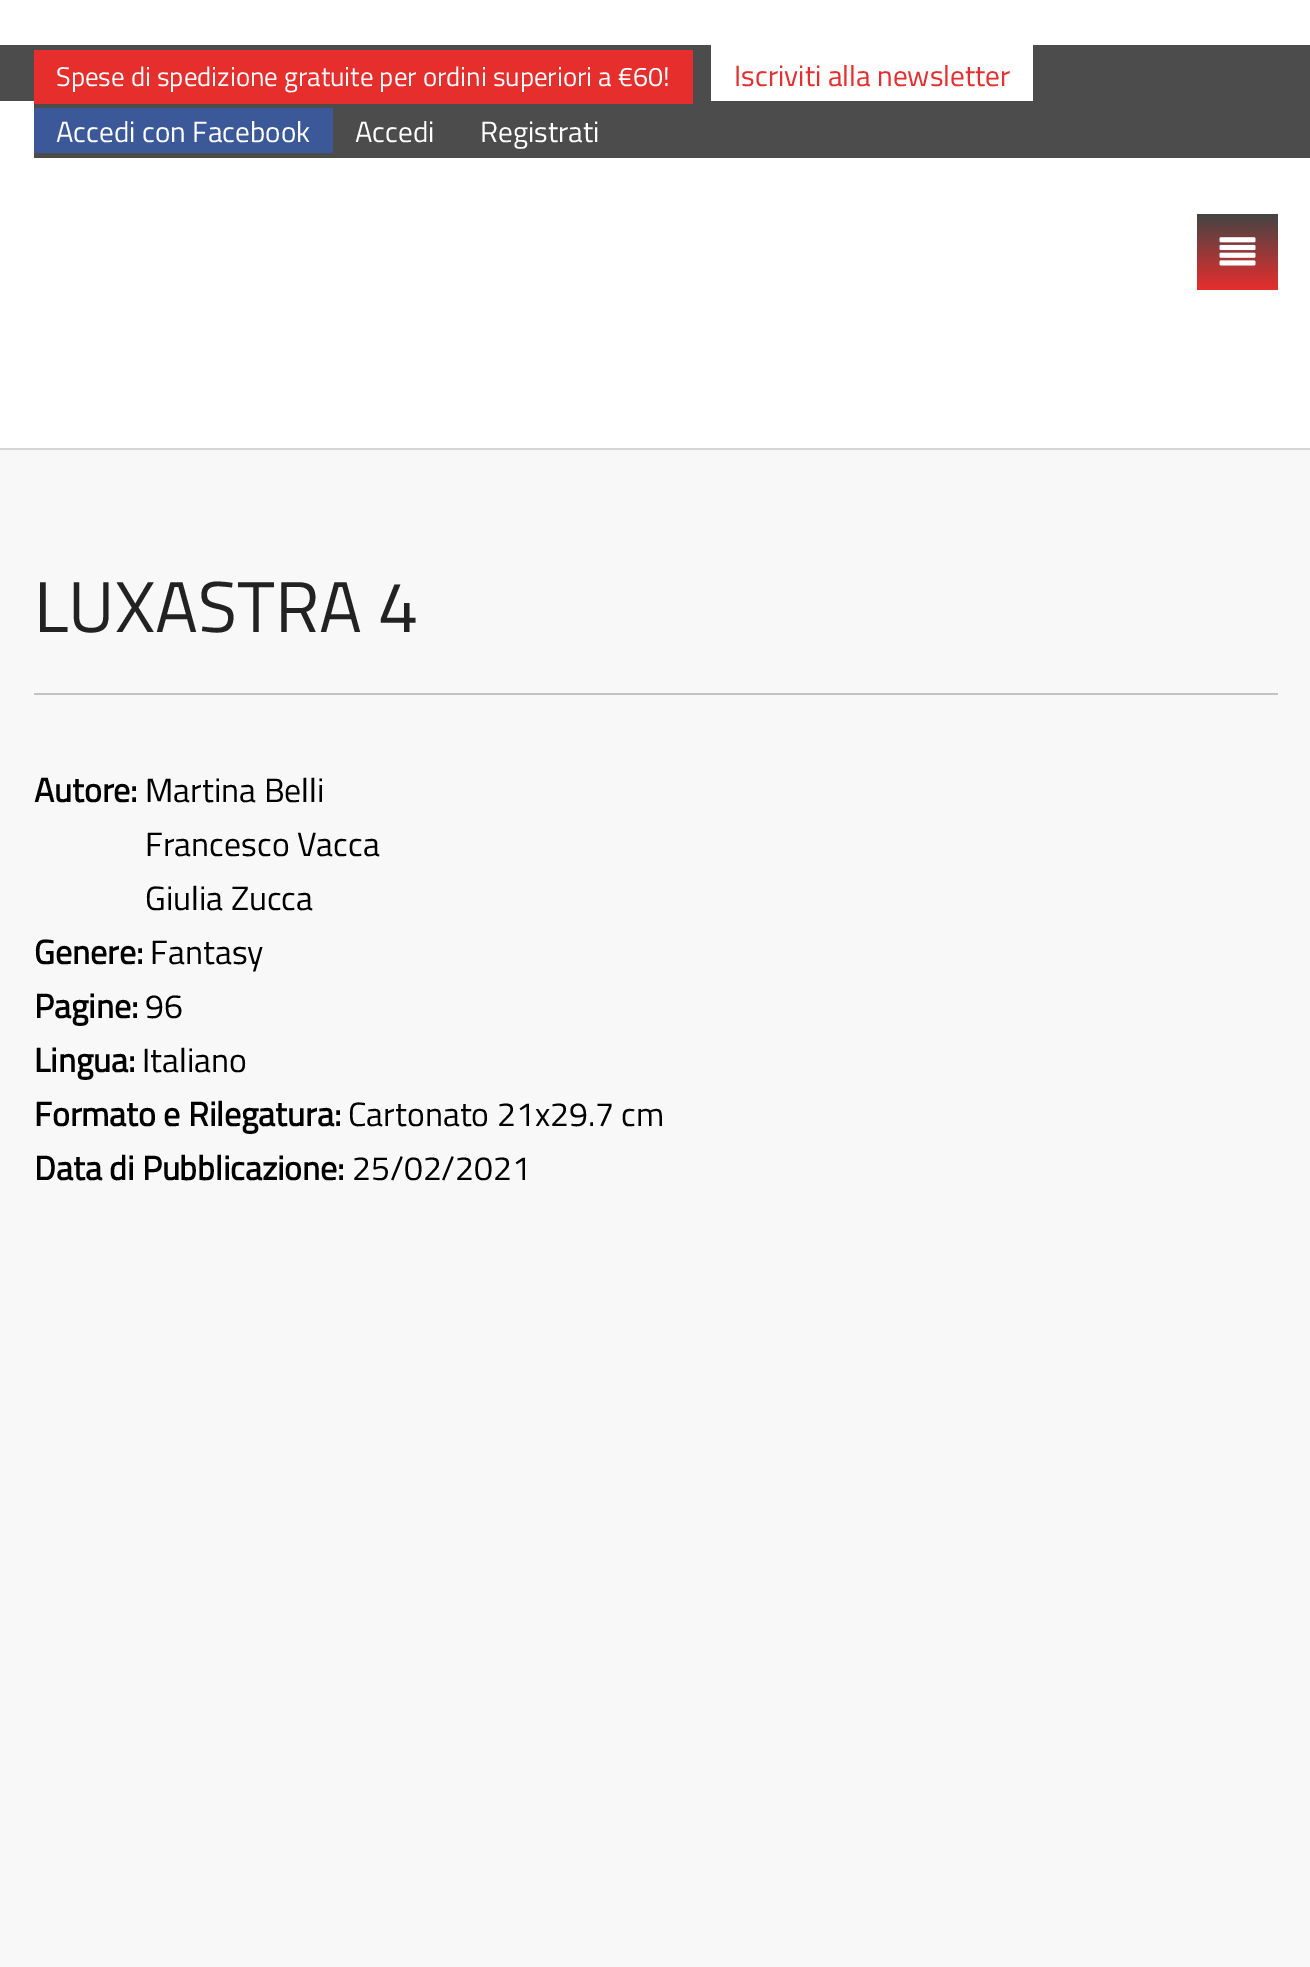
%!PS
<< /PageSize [1310 1967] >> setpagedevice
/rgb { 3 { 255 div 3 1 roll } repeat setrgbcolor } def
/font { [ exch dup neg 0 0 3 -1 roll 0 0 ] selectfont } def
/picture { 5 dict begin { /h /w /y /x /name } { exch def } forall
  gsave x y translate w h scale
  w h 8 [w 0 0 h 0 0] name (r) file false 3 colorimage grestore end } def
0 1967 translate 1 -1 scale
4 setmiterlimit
248 248 248 rgb
0 0 1310 1967 rectfill
[
  [0 0 1310 448 255 255 255]
  [0 45 1310 56 76 76 76]
  [34 101 1276 57 76 76 76]
  [34 50 659 54 230 46 45]
  [711 45 322 56 255 255 255]
  [34 108 299 45 59 89 152]
  [0 448 1310 2 213 212 212]
] { aload pop rgb rectfill } forall
gsave 1197 214 moveto 1278 214 lineto 1278 290 lineto 1197 290 lineto closepath clip newpath
<< /ShadingType 2 /ColorSpace /DeviceRGB /Coords [1238 214 1238 290] /Extend [true true] /Function << /FunctionType 2 /Domain [0 1] /C0 [0.267 0.267 0.267] /C1 [0.902 0.18 0.176] /N 1 >> >> shfill grestore
(img/1.rgb) 1219 237 37 29 picture
195 195 195 rgb
34 693 1244 2 rectfill
/TitilliumWeb-Regular 27 font
255 255 255 rgb
56 86 moveto (Spese di spedizione gratuite per ordini superiori a €60!) show
/TitilliumWeb-Regular 29.25 font
229 46 45 rgb
734 86 moveto (Iscriviti alla newsletter) show
255 255 255 rgb
[
  [(Accedi con Facebook) 56 142]
  [(Accedi) 355 142]
  [(Registrati) 480 142]
] { aload pop moveto show } forall
/TitilliumWeb-Regular 72 font
34 34 34 rgb
34 632 moveto (LUXASTRA 4) show
/TitilliumWeb-Bold 33.75 font
0 0 0 rgb
34 802 moveto (Autore:) show
/TitilliumWeb-Regular 33.75 font
[
  [(Martina Belli) 145 802]
  [(Francesco Vacca) 145 856]
  [(Giulia Zucca) 145 910]
] { aload pop moveto show } forall
/TitilliumWeb-Bold 33.75 font
34 964 moveto (Genere:) show
/TitilliumWeb-Regular 33.75 font
150 964 moveto (Fantasy) show
/TitilliumWeb-Bold 33.75 font
34 1018 moveto (Pagine:) show
/TitilliumWeb-Regular 33.75 font
145 1018 moveto (96) show
/TitilliumWeb-Bold 33.75 font
34 1072 moveto (Lingua:) show
/TitilliumWeb-Regular 33.75 font
142 1072 moveto (Italiano) show
/TitilliumWeb-Bold 33.75 font
34 1126 moveto (Formato e Rilegatura:) show
/TitilliumWeb-Regular 33.75 font
348 1126 moveto (Cartonato 21x29.7 cm) show
/TitilliumWeb-Bold 33.75 font
34 1180 moveto (Data di Pubblicazione:) show
/TitilliumWeb-Regular 33.75 font
352 1180 moveto (25/02/2021) show
showpage
